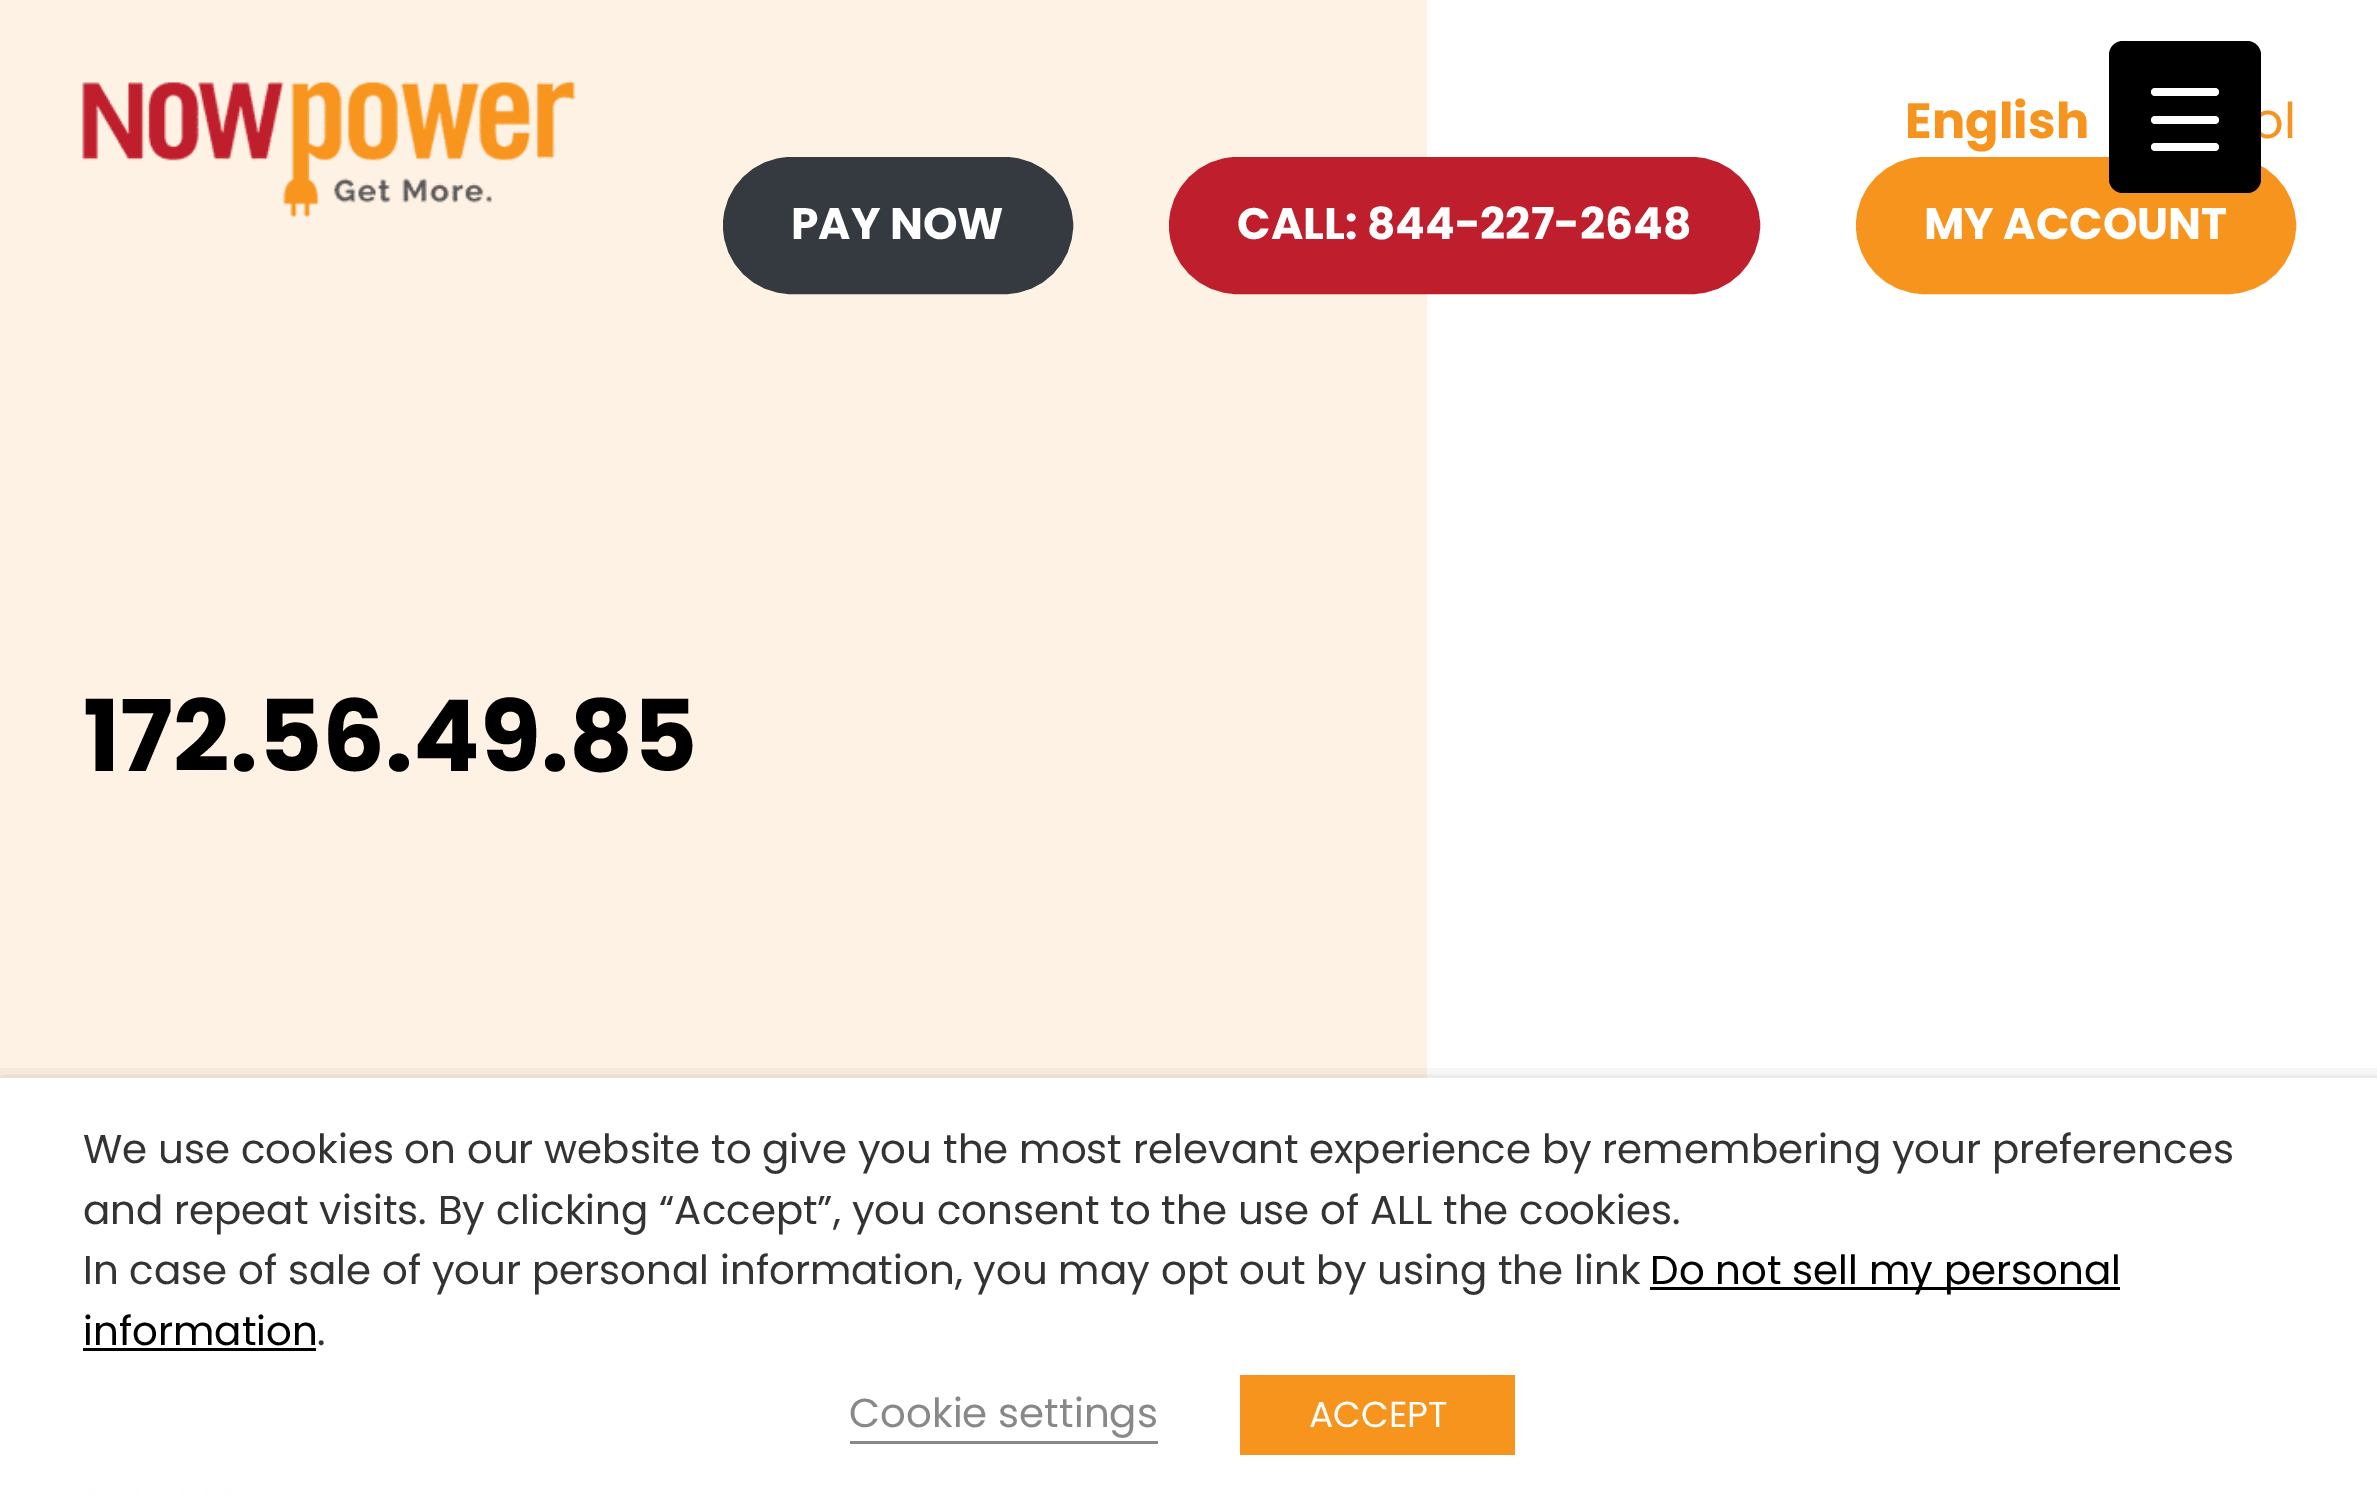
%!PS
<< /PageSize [2377 1509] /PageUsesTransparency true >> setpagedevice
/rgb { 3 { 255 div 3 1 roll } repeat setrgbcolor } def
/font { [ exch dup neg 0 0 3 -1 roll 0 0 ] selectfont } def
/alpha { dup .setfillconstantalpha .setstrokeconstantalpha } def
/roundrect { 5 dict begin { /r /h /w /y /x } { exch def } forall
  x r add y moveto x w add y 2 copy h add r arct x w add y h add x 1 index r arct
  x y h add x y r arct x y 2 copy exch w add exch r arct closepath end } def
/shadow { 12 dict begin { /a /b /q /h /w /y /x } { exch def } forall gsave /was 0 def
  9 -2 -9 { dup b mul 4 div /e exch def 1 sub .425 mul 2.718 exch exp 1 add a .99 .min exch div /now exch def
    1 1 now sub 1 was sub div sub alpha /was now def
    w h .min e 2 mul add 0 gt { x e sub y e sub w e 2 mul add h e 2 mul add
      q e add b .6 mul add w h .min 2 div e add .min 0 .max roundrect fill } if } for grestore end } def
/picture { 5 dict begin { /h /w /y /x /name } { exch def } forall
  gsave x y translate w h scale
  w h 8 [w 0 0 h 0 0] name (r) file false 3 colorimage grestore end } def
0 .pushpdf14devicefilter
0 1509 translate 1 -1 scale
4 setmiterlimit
255 255 255 rgb
0 0 2377 1509 rectfill
254 242 228 rgb
0 0 1427 1078 rectfill
(img/1.rgb) 82 82 493 136 picture
52 58 64 rgb
724.5 158.5 347 134 67 roundrect gsave fill grestore
3 setlinewidth
stroke
191 30 45 rgb
1170.5 158.5 588 134 67 roundrect gsave fill grestore
stroke
247 148 30 rgb
1857.5 158.5 437 134 67 roundrect gsave fill grestore
stroke
(img/2.rgb) 88 1449 145 49 picture
gsave
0 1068 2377 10 rectclip
0 0 0 rgb
0 1092 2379 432 0 14 0.5 shadow
grestore
[
  [1650 1287 470 3 0 0 0]
  [83 1348 233 3 0 0 0]
  [850 1441 308 3 137 136 136]
  [1240 1375 275 80 247 148 30]
] { aload pop rgb rectfill } forall
/Poppins-Bold 49.5 font
1905 138 moveto (English) show
/Poppins-Regular 49.5 font
2252 138 moveto (ol) show
0 0 0 rgb
2109 41 152 152 14 roundrect fill
255 255 255 rgb
2151 88 68 8 4 roundrect fill
2151 143 68 8 4 roundrect fill
2151 116 68 8 4 roundrect fill
/Poppins-Bold 44 font
[
  [(PAY NOW) 791 239]
  [(CALL: 844-227-2648) 1237 239]
  [(MY ACCOUNT) 1924 239]
] { aload pop moveto show } forall
/Poppins-Bold 99 font
0 0 0 rgb
83 771 moveto (172.56.49.85) show
/Poppins-Regular 40.33 font
51 51 51 rgb
[
  [(We use cookies on our website to give you the most relevant experience by remembering your preferences) 83 1163]
  [(and repeat visits. By clicking “Accept”, you consent to the use of ALL the cookies.) 83 1224]
  [(In case of sale of your personal information, you may opt out by using the link) 83 1284]
] { aload pop moveto show } forall
0 0 0 rgb
1650 1284 moveto (Do not sell my personal) show
83 1345 moveto (information) show
51 51 51 rgb
317 1345 moveto (.) show
137 136 136 rgb
849 1427 moveto (Cookie settings) show
/Poppins-Regular 36 font
255 255 255 rgb
1309 1427 moveto (ACCEPT) show
.poppdf14devicefilter showpage
